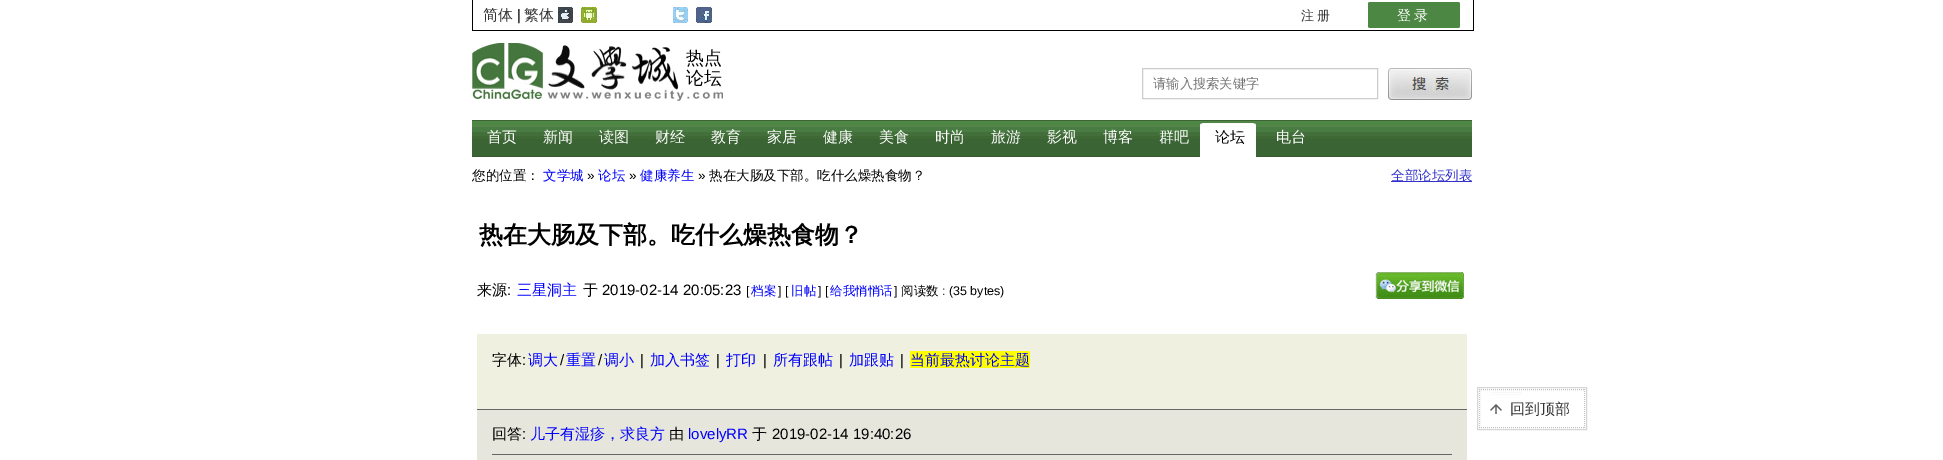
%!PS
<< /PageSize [1943 460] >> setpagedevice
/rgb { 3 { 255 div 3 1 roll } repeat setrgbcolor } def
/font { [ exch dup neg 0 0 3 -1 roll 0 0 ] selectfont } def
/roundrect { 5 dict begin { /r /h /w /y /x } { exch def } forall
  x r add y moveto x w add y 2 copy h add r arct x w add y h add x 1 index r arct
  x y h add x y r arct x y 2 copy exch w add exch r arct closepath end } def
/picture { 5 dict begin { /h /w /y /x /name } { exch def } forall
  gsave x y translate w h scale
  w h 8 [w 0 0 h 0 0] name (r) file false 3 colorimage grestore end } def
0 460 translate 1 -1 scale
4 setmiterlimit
255 255 255 rgb
0 0 1943 460 rectfill
[
  [1473 0 1 31 0 0 0]
  [472 30 1002 1 0 0 0]
  [472 0 1 31 0 0 0]
] { aload pop rgb rectfill } forall
(img/1.rgb) 558 7 15 16 picture
(img/2.rgb) 581 7 16 16 picture
(img/3.rgb) 673 7 15 16 picture
(img/4.rgb) 696 7 16 16 picture
76 135 67 rgb
1368 2 92 26 2 roundrect fill
(img/5.rgb) 472 43 251 58 picture
204 204 204 rgb
1142.5 68.5 235 30 rectstroke
(img/6.rgb) 1388 68 84 32 picture
(img/7.rgb) 472 120 1000 37 picture
(img/8.rgb) 1200 123 56 34 picture
51 51 204 rgb
1391 181 81 1 rectfill
(img/9.rgb) 1375 272 89 27 picture
[
  [477 334 990 75 240 240 224]
  [910 351 120 17 255 255 0]
  [477 410 990 50 230 230 221]
  [477 409 990 1 102 102 102]
  [492 454 960 1 102 102 102]
] { aload pop rgb rectfill } forall
214 214 214 rgb
1477.5 387.5 109 42 rectstroke
193 193 193 rgb
[1 1] 0 setdash
1479 389.5 moveto 1585 389.5 lineto stroke
1584.5 389 moveto 1584.5 428 lineto stroke
1479 427.5 moveto 1585 427.5 lineto stroke
1479.5 389 moveto 1479.5 428 lineto stroke
(img/10.rgb) 1490 392 33 22 picture
/WenQuanYiZenHei-Medium 15 font
51 51 51 rgb
483 20 moveto (简体) show
/LiberationSans-Regular 15 font
0 0 0 rgb
517 20 moveto (|) show
/WenQuanYiZenHei-Medium 15 font
51 51 51 rgb
524 20 moveto (繁体) show
/WenQuanYiZenHei-Medium 13 font
1301 20 moveto 3 0 (注册) ashow
/WenQuanYiZenHei-Medium 14 font
255 255 255 rgb
1397 20 moveto 3 0 (登录) ashow
/WenQuanYiZenHei-Medium 18 font
0 0 0 rgb
686 64 moveto (热点) show
686 84 moveto (论坛) show
/WenQuanYiZenHei-Medium 13.25 font
117 117 117 rgb
1153 88 moveto (请输入搜索关键字) show
/WenQuanYiZenHei-Medium 15 font
255 255 255 rgb
[
  [(首页) 487 142]
  [(新闻) 543 142]
  [(读图) 599 142]
  [(财经) 655 142]
  [(教育) 711 142]
  [(家居) 767 142]
  [(健康) 823 142]
  [(美食) 879 142]
  [(时尚) 935 142]
  [(旅游) 991 142]
  [(影视) 1047 142]
  [(博客) 1103 142]
  [(群吧) 1159 142]
] { aload pop moveto show } forall
0 0 0 rgb
1215 142 moveto (论坛) show
255 255 255 rgb
1276 142 moveto (电台) show
/WenQuanYiZenHei-Medium 13.5 font
0 0 0 rgb
472 180 moveto (您的位置：) show
0 0 255 rgb
543 180 moveto (文学城) show
/LiberationSans-Regular 13.5 font
0 0 0 rgb
587 180 moveto (») show
/WenQuanYiZenHei-Medium 13.5 font
0 0 255 rgb
598 180 moveto (论坛) show
/LiberationSans-Regular 13.5 font
0 0 0 rgb
629 180 moveto (») show
/WenQuanYiZenHei-Medium 13.5 font
0 0 255 rgb
640 180 moveto (健康养生) show
/LiberationSans-Regular 13.5 font
0 0 0 rgb
698 180 moveto (») show
/WenQuanYiZenHei-Medium 13.5 font
709 180 moveto (热在大肠及下部。吃什么燥热食物？) show
51 51 204 rgb
1391 180 moveto (全部论坛列表) show
/WenQuanYiZenHei-Bold 24 font
0 0 0 rgb
479 243 moveto (热在大肠及下部。吃什么燥热食物？) show
/WenQuanYiZenHei-Medium 15 font
477 295 moveto (来源) show
/LiberationSans-Regular 15 font
507 295 moveto (:) show
/WenQuanYiZenHei-Medium 15 font
0 0 255 rgb
517 295 moveto (三星洞主) show
0 0 0 rgb
583 295 moveto (于) show
/LiberationSans-Regular 15 font
602 295 moveto (2019-02-14 20:05:23) show
/LiberationSans-Regular 12.5 font
746 295 moveto ([) show
/WenQuanYiZenHei-Medium 12.5 font
0 0 255 rgb
751 295 moveto (档案) show
/LiberationSans-Regular 12.5 font
0 0 0 rgb
778 295 moveto (] [) show
/WenQuanYiZenHei-Medium 12.5 font
0 0 255 rgb
791 295 moveto (旧帖) show
/LiberationSans-Regular 12.5 font
0 0 0 rgb
818 295 moveto (] [) show
/WenQuanYiZenHei-Medium 12.5 font
0 0 255 rgb
830 295 moveto (给我悄悄话) show
/LiberationSans-Regular 12.5 font
0 0 0 rgb
894 295 moveto (]) show
/WenQuanYiZenHei-Medium 12.5 font
901 295 moveto (阅读数) show
/LiberationSans-Regular 12.5 font
942 295 moveto (: \(35 bytes\)) show
/WenQuanYiZenHei-Medium 15 font
492 365 moveto (字体) show
/LiberationSans-Regular 15 font
522 365 moveto (:) show
/WenQuanYiZenHei-Medium 15 font
0 0 255 rgb
528 365 moveto (调大) show
/LiberationSans-Regular 15 font
0 0 0 rgb
560 365 moveto (/) show
/WenQuanYiZenHei-Medium 15 font
0 0 255 rgb
566 365 moveto (重置) show
/LiberationSans-Regular 15 font
0 0 0 rgb
598 365 moveto (/) show
/WenQuanYiZenHei-Medium 15 font
0 0 255 rgb
604 365 moveto (调小) show
/LiberationSans-Regular 15 font
0 0 0 rgb
640 365 moveto (|) show
/WenQuanYiZenHei-Medium 15 font
0 0 255 rgb
650 365 moveto (加入书签) show
/LiberationSans-Regular 15 font
0 0 0 rgb
716 365 moveto (|) show
/WenQuanYiZenHei-Medium 15 font
0 0 255 rgb
726 365 moveto (打印) show
/LiberationSans-Regular 15 font
0 0 0 rgb
763 365 moveto (|) show
/WenQuanYiZenHei-Medium 15 font
0 0 255 rgb
773 365 moveto (所有跟帖) show
/LiberationSans-Regular 15 font
0 0 0 rgb
839 365 moveto (|) show
/WenQuanYiZenHei-Medium 15 font
0 0 255 rgb
849 365 moveto (加跟贴) show
/LiberationSans-Regular 15 font
0 0 0 rgb
900 365 moveto (|) show
/WenQuanYiZenHei-Medium 15 font
0 0 255 rgb
910 365 moveto (当前最热讨论主题) show
0 0 0 rgb
492 439 moveto (回答) show
/LiberationSans-Regular 15 font
522 439 moveto (:) show
/WenQuanYiZenHei-Medium 15 font
0 0 255 rgb
530 439 moveto (儿子有湿疹，求良方) show
0 0 0 rgb
669 439 moveto (由) show
/LiberationSans-Regular 15 font
0 0 255 rgb
688 439 moveto (lovelyRR) show
/WenQuanYiZenHei-Medium 15 font
0 0 0 rgb
752 439 moveto (于) show
/LiberationSans-Regular 15 font
772 439 moveto (2019-02-14 19:40:26) show
/WenQuanYiZenHei-Medium 15 font
51 51 51 rgb
1510 414 moveto (回到顶部) show
showpage
